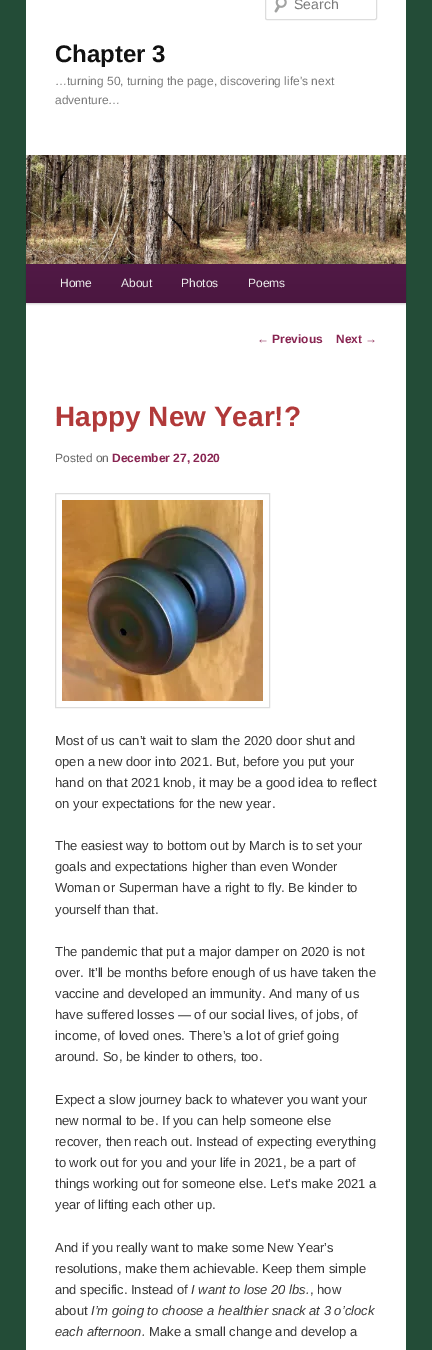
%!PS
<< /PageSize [432 1350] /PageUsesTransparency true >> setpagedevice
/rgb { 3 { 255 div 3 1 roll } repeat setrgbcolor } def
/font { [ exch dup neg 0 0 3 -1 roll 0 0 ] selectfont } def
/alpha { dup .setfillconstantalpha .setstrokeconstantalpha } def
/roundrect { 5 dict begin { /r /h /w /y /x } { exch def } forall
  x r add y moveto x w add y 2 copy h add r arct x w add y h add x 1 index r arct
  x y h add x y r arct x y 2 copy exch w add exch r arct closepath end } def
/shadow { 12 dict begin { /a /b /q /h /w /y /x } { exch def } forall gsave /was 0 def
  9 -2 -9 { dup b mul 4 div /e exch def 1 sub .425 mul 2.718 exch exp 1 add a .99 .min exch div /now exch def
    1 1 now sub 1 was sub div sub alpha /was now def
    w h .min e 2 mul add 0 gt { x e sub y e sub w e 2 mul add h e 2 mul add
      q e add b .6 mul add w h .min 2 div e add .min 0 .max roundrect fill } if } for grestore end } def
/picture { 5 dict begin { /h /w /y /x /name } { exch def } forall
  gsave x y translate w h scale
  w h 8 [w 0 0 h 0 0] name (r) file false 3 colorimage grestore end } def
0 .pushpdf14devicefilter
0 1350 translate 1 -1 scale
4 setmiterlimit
35 76 55 rgb
0 0 432 1350 rectfill
255 255 255 rgb
26 0 380 1350 rectfill
(img/1.rgb) 274 0 13 13 picture
221 221 221 rgb
265.5 -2.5 111 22 1.5 roundrect stroke
0 0 0 rgb
26 264 380 40 0 1 0.2 shadow
(img/2.rgb) 26 155 380 109 picture
gsave 26 264 moveto 406 264 lineto 406 303 lineto 26 303 lineto closepath clip newpath
<< /ShadingType 2 /ColorSpace /DeviceRGB /Coords [216 263 216 303] /Extend [true true] /Function << /FunctionType 2 /Domain [0 1] /C0 [0.318 0.098 0.275] /C1 [0.294 0.09 0.251] /N 1 >> >> shfill grestore
221 221 221 rgb
55.5 493.5 214 214 rectstroke
(img/3.rgb) 62 500 201 201 picture
/LiberationSans-Regular 14 font
122 122 122 rgb
294 9 moveto (Search) show
/LiberationSans-Bold 24 font
17 17 17 rgb
55 62 moveto (Chapter 3) show
/LiberationSans-Regular 12 font
122 122 122 rgb
55 85 moveto (…turning 50, turning the page, discovering life's next) show
55 104 moveto (adventure…) show
238 238 238 rgb
[
  [(Home) 60 287]
  [(About) 121 287]
  [(Photos) 181 287]
  [(Poems) 248 287]
] { aload pop moveto show } forall
136 36 81 rgb
257 343 moveto (←) show
/LiberationSans-Bold 12 font
272 343 moveto (Previous) show
336 343 moveto (Next) show
/LiberationSans-Regular 12 font
365 343 moveto (→) show
/LiberationSans-Bold 28 font
177 57 57 rgb
55 426 moveto (Happy New Year!?) show
/LiberationSans-Regular 12 font
102 102 102 rgb
55 462 moveto (Posted on) show
/LiberationSans-Bold 12 font
136 36 81 rgb
112 462 moveto (December 27, 2020) show
/LiberationSans-Regular 13 font
55 55 55 rgb
[
  [(Most of us can’t wait to slam the 2020 door shut and) 55 745]
  [(open a new door into 2021. But, before you put your) 55 766]
  [(hand on that 2021 knob, it may be a good idea to reflect) 55 787]
  [(on your expectations for the new year.) 55 808]
  [(The easiest way to bottom out by March is to set your) 55 850]
  [(goals and expectations higher than even Wonder) 55 871]
  [(Woman or Superman have a right to fly. Be kinder to) 55 892]
  [(yourself than that.) 55 914]
  [(The pandemic that put a major damper on 2020 is not) 55 956]
  [(over. It’ll be months before enough of us have taken the) 55 977]
  [(vaccine and developed an immunity. And many of us) 55 998]
  [(have suffered losses — of our social lives, of jobs, of) 55 1019]
  [(income, of loved ones. There’s a lot of grief going) 55 1040]
  [(around. So, be kinder to others, too.) 55 1061]
  [(Expect a slow journey back to whatever you want your) 55 1104]
  [(new normal to be. If you can help someone else) 55 1125]
  [(recover, then reach out. Instead of expecting everything) 55 1146]
  [(to work out for you and your life in 2021, be a part of) 55 1167]
  [(things working out for someone else. Let’s make 2021 a) 55 1188]
  [(year of lifting each other up.) 55 1209]
  [(And if you really want to make some New Year’s) 55 1252]
  [(resolutions, make them achievable. Keep them simple) 55 1273]
  [(and specific. Instead of) 55 1294]
] { aload pop moveto show } forall
/LiberationSans-Italic 13 font
191 1294 moveto (I want to lose 20 lbs.) show
/LiberationSans-Regular 13 font
310 1294 moveto (, how) show
55 1315 moveto (about) show
/LiberationSans-Italic 13 font
91 1315 moveto (I’m going to choose a healthier snack at 3 o’clock) show
55 1336 moveto (each afternoon.) show
/LiberationSans-Regular 13 font
149 1336 moveto (Make a small change and develop a) show
.poppdf14devicefilter showpage
